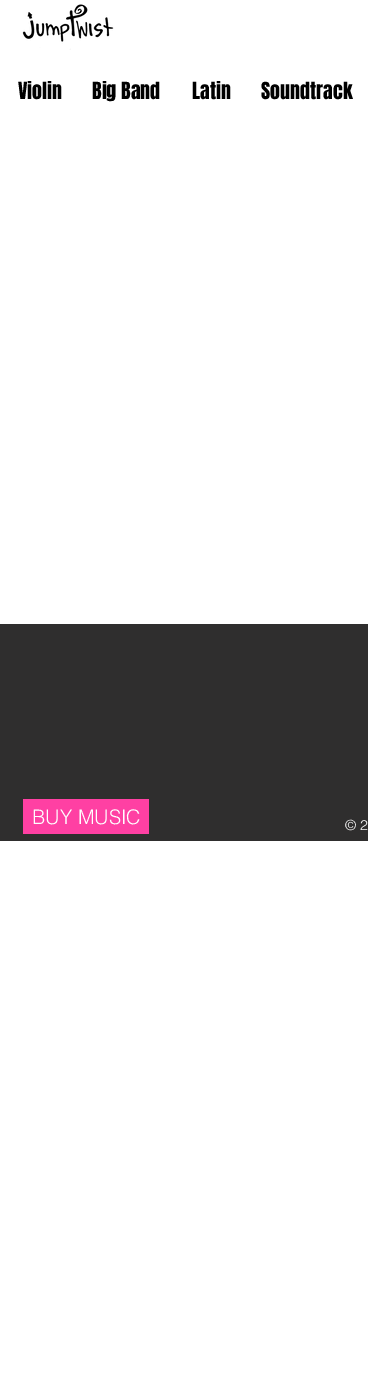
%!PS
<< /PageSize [368 1395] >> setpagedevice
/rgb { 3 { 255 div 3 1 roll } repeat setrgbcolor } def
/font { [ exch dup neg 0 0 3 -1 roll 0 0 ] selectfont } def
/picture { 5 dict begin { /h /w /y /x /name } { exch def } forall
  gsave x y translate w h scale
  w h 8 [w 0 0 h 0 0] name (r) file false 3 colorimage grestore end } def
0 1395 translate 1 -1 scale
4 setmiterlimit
255 255 255 rgb
0 0 368 1395 rectfill
(img/1.rgb) 22 4 92 46 picture
47 46 46 rgb
0 624 368 217 rectfill
255 64 163 rgb
23 799 126 35 rectfill
/Anton-Regular 20 font
0 0 0 rgb
[
  [(Violin) 18 99]
  [(Big Band) 92 99]
  [(Latin) 192 99]
  [(Soundtrack) 261 99]
] { aload pop moveto show } forall
/helvetica-Light 20 font
255 255 255 rgb
32 824 moveto (BUY MUSIC) show
/helvetica-Light 14 font
345 830 moveto (© 2) show
showpage
